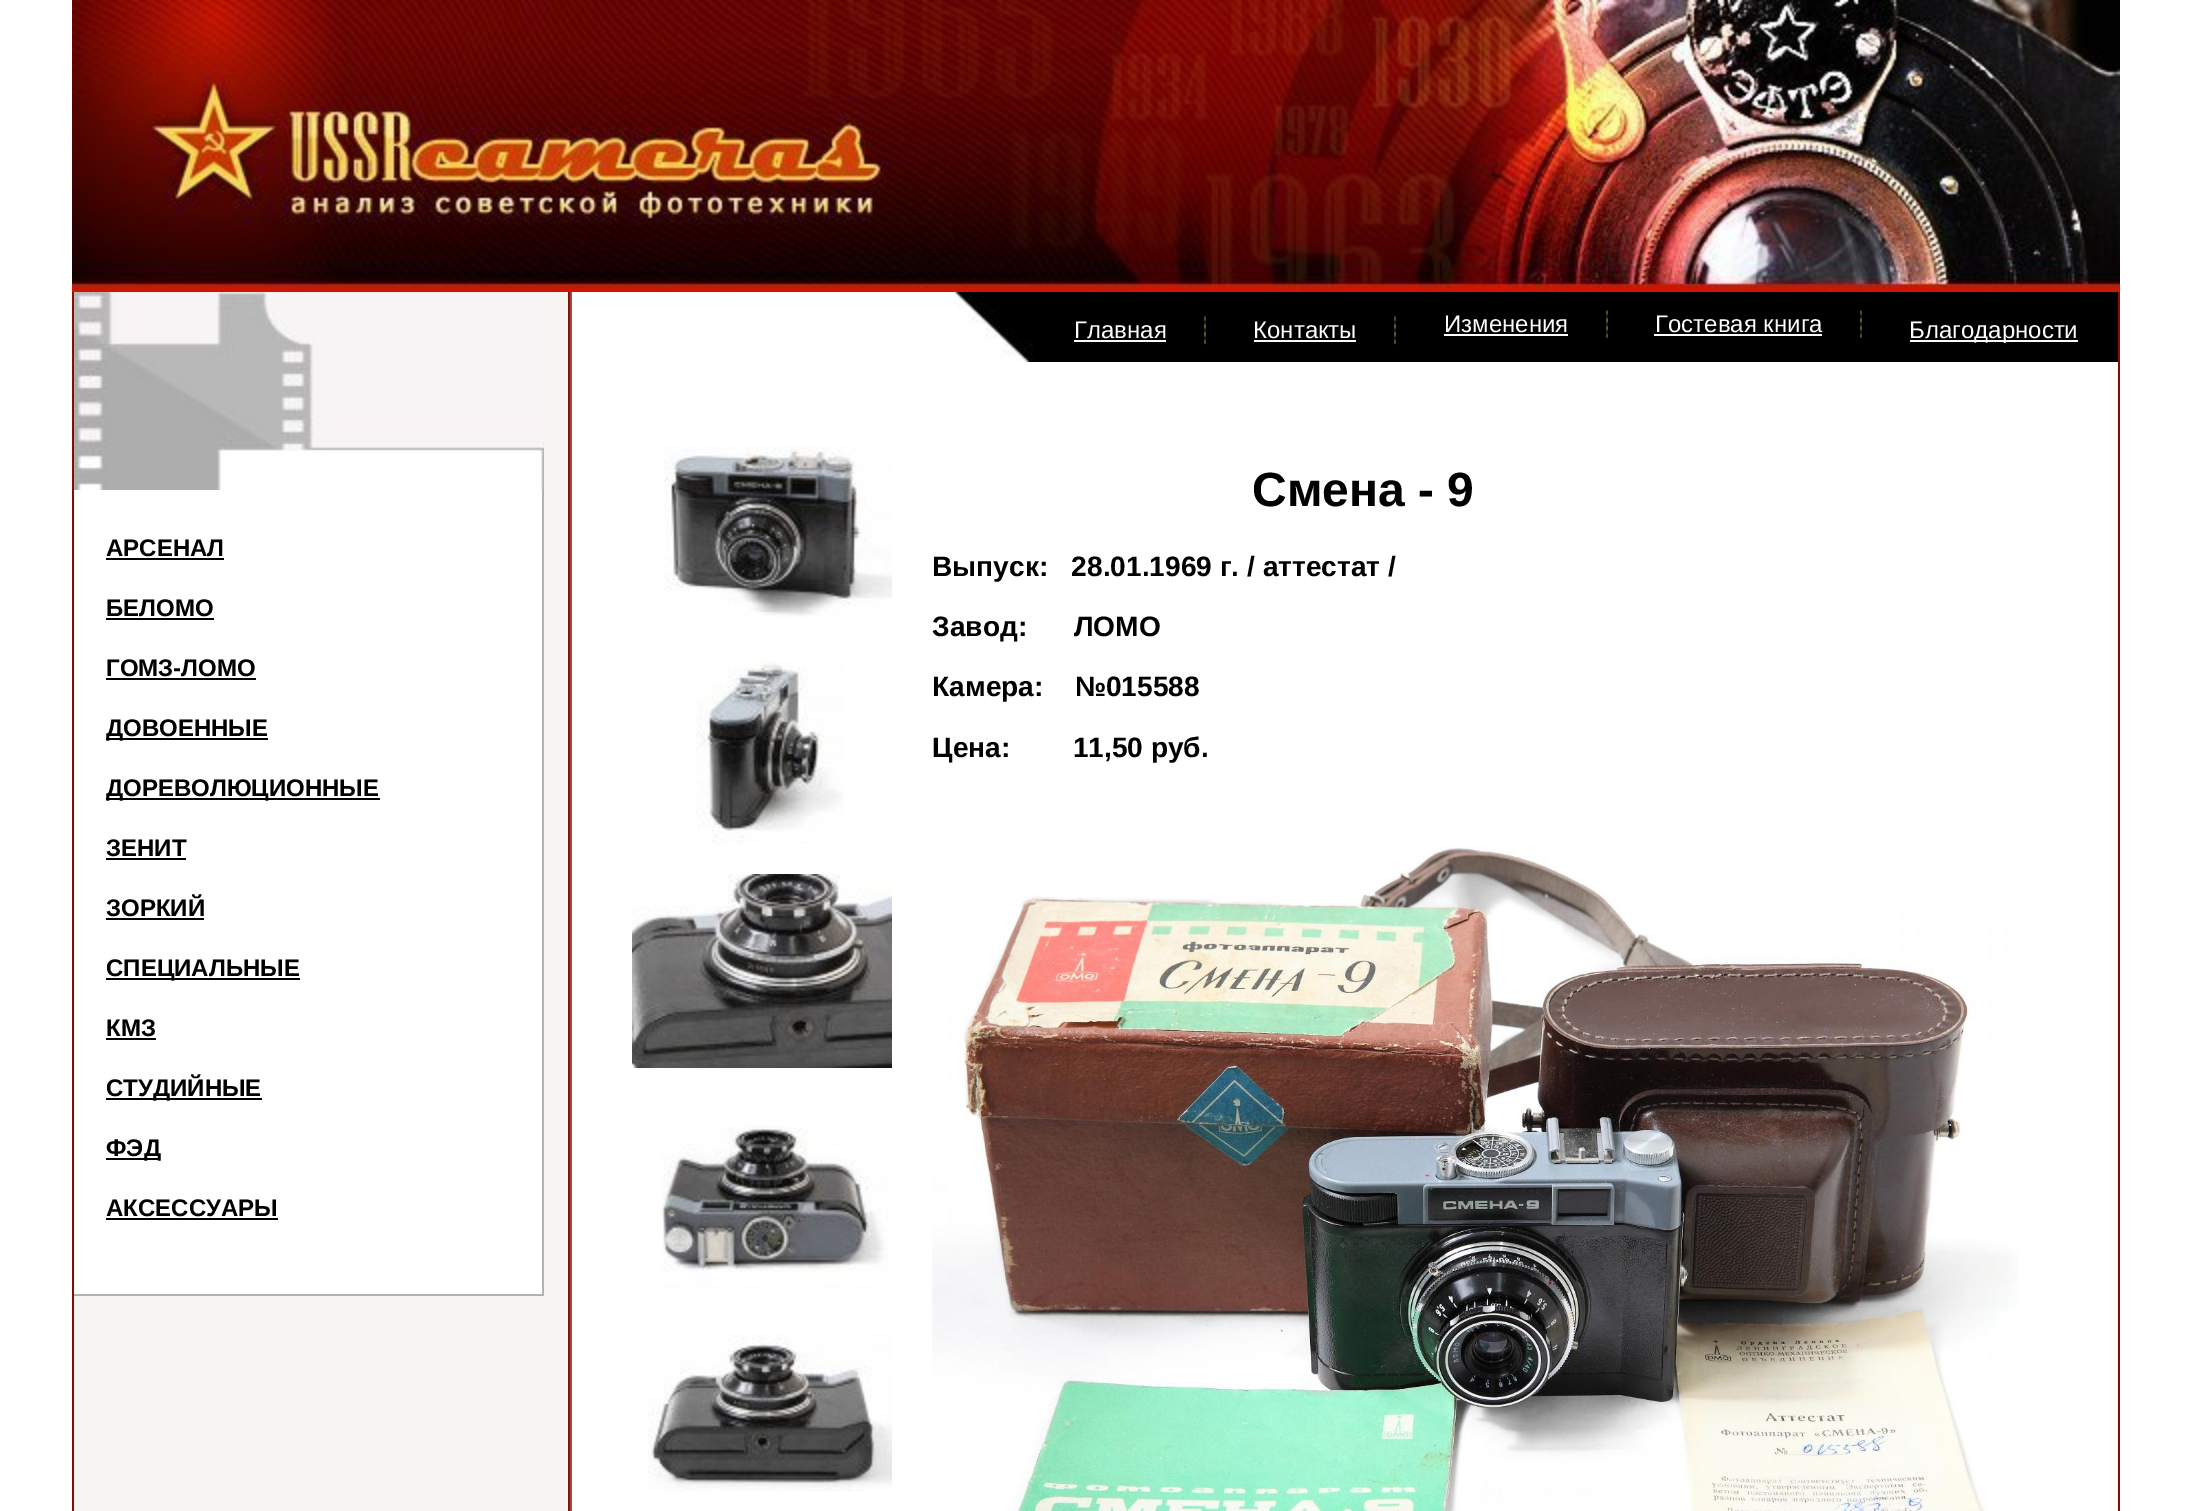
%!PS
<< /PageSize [2191 1511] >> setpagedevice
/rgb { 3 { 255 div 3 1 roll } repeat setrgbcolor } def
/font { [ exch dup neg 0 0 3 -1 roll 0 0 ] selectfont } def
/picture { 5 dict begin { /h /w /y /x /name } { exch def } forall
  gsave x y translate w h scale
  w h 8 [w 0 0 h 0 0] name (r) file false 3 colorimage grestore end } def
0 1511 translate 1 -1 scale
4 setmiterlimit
255 255 255 rgb
0 0 2191 1511 rectfill
(img/1.rgb) 72 0 2048 292 picture
247 244 244 rgb
74 292 494 1219 rectfill
135 12 1 rgb
72 292 2 1219 rectfill
(img/2.rgb) 74 292 470 198 picture
[
  [74 490 468 804 255 255 255]
  [542 490 2 806 178 178 178]
  [106 558 118 2 0 0 0]
  [106 618 108 2 0 0 0]
  [106 678 150 2 0 0 0]
  [106 738 162 2 0 0 0]
  [106 798 274 2 0 0 0]
  [106 858 80 2 0 0 0]
  [106 918 98 2 0 0 0]
  [106 978 194 2 0 0 0]
  [106 1038 50 2 0 0 0]
  [106 1098 156 2 0 0 0]
  [106 1158 54 2 0 0 0]
  [106 1218 172 2 0 0 0]
  [74 1294 468 2 178 178 178]
] { aload pop rgb rectfill } forall
(img/3.rgb) 568 292 4 1219 picture
135 12 1 rgb
2118 292 2 1219 rectfill
0 0 0 rgb
1034 292 1084 70 rectfill
(img/4.rgb) 954 292 80 70 picture
(img/5.rgb) 1204 316 2 28 picture
255 255 255 rgb
1074 340 92 2 rectfill
(img/5.rgb) 1394 316 2 28 picture
1254 340 102 2 rectfill
(img/5.rgb) 1606 310 2 28 picture
1444 334 124 2 rectfill
(img/5.rgb) 1860 310 2 28 picture
1654 334 168 2 rectfill
1910 340 168 2 rectfill
(img/6.rgb) 663 446 229 171 picture
(img/7.rgb) 695 660 149 184 picture
(img/8.rgb) 632 874 260 194 picture
(img/9.rgb) 661 1125 227 163 picture
(img/10.rgb) 648 1334 244 158 picture
(img/11.rgb) 932 846 1086 665 picture
/LiberationSans-Bold 24 font
0 0 0 rgb
[
  [(АРСЕНАЛ) 106 556]
  [(БЕЛОМО) 106 616]
  [(ГОМЗ-ЛОМО) 106 676]
  [(ДОВОЕННЫЕ) 106 736]
  [(ДОРЕВОЛЮЦИОННЫЕ) 106 796]
  [(ЗЕНИТ) 106 856]
  [(ЗОРКИЙ) 106 916]
  [(СПЕЦИАЛЬНЫЕ) 106 976]
  [(КМЗ) 106 1036]
  [(СТУДИЙНЫЕ) 106 1096]
  [(ФЭД) 106 1156]
  [(АКСЕССУАРЫ) 106 1216]
] { aload pop moveto show } forall
/LiberationSans-Regular 24 font
255 255 255 rgb
[
  [(Главная) 1074 338]
  [(Контакты) 1253 338]
  [(Изменения) 1444 332]
  [(Гостевая книга) 1655 332]
  [(Благодарности) 1909 338]
] { aload pop moveto show } forall
/LiberationSans-Bold 48 font
0 0 0 rgb
1252 506 moveto (Смена - 9) show
/LiberationSans-Bold 28.1 font
[
  [(Выпуск:   28.01.1969 г. / аттестат /) 932 576]
  [(Завод:      ЛОМО) 932 636]
  [(Камера:    №015588) 932 696]
  [(Цена:        11,50 руб.) 932 757]
] { aload pop moveto show } forall
showpage
